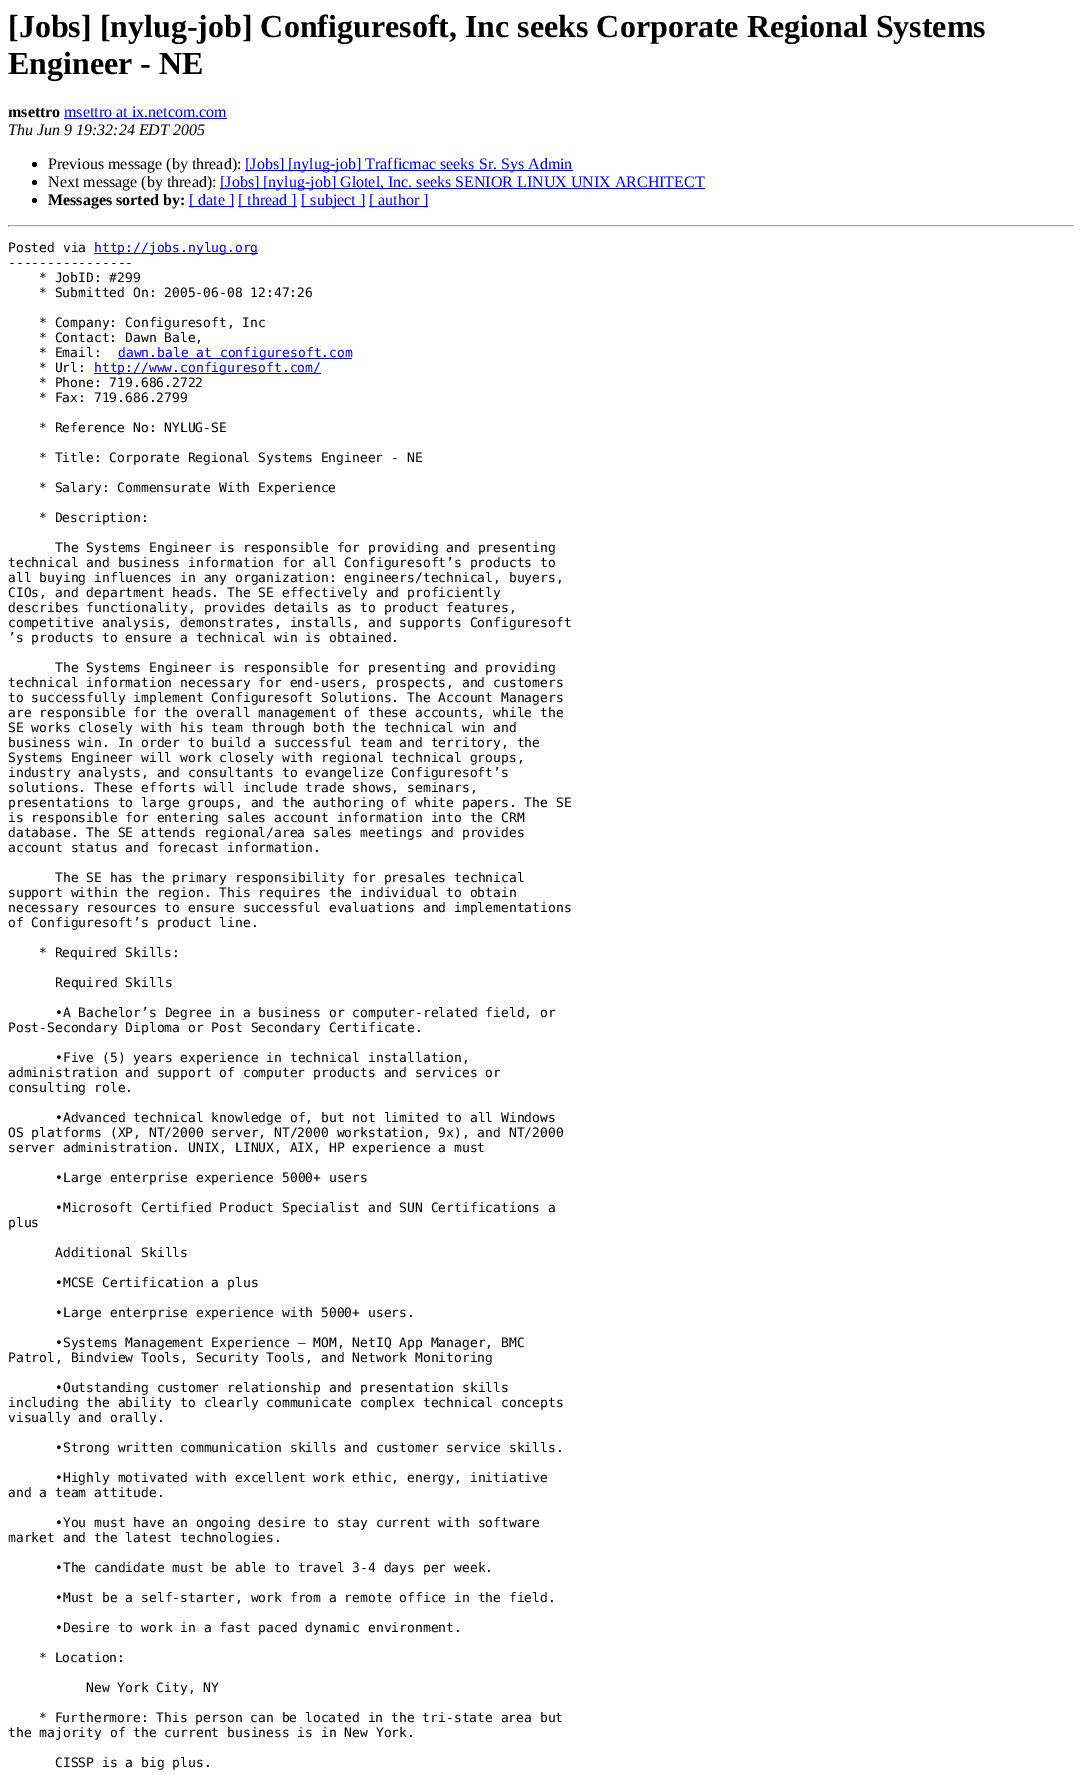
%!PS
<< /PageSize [1082 1775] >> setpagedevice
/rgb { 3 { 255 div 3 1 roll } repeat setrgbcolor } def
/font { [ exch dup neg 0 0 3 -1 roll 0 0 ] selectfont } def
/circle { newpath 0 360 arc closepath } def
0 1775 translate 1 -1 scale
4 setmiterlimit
255 255 255 rgb
0 0 1082 1775 rectfill
0 0 238 rgb
64 118 163 1 rectfill
0 0 0 rgb
34.5 164.5 2.5 circle fill
0 0 238 rgb
245 170 328 1 rectfill
0 0 0 rgb
34.5 182.5 2.5 circle fill
0 0 238 rgb
220 188 485 1 rectfill
0 0 0 rgb
34.5 200.5 2.5 circle fill
[
  [189 206 45 1 0 0 238]
  [238 206 59 1 0 0 238]
  [301 206 64 1 0 0 238]
  [369 206 59 1 0 0 238]
  [8 225 1066 1 159 159 159]
  [1073 225 1 2 238 238 238]
  [8 226 1066 1 238 238 238]
  [8 225 1 2 159 159 159]
  [94 253 164 1 0 0 238]
  [118 358 234 1 0 0 238]
  [94 373 227 1 0 0 238]
] { aload pop rgb rectfill } forall
/LiberationSerif-Bold 32 font
0 0 0 rgb
8 37 moveto ([Jobs] [nylug-job] Configuresoft, Inc seeks Corporate Regional Systems) show
8 74 moveto (Engineer - NE) show
/LiberationSerif-Bold 16 font
8 117 moveto (msettro) show
/LiberationSerif-Regular 16 font
0 0 238 rgb
64 117 moveto (msettro at ix.netcom.com) show
/LiberationSerif-Italic 16 font
0 0 0 rgb
8 135 moveto (Thu Jun 9 19:32:24 EDT 2005) show
/LiberationSerif-Regular 16 font
48 169 moveto (Previous message \(by thread\):) show
0 0 238 rgb
245 169 moveto ([Jobs] [nylug-job] Trafficmac seeks Sr. Sys Admin) show
0 0 0 rgb
48 187 moveto (Next message \(by thread\):) show
0 0 238 rgb
220 187 moveto ([Jobs] [nylug-job] Glotel, Inc. seeks SENIOR LINUX UNIX ARCHITECT) show
/LiberationSerif-Bold 16 font
0 0 0 rgb
48 205 moveto (Messages sorted by:) show
/LiberationSerif-Regular 16 font
0 0 238 rgb
[
  [([ date ]) 189 205]
  [([ thread ]) 238 205]
  [([ subject ]) 301 205]
  [([ author ]) 369 205]
] { aload pop moveto show } forall
/DejaVuSansMono-Regular 13 font
0 0 0 rgb
8 252 moveto (Posted via) show
0 0 238 rgb
94 252 moveto (http://jobs.nylug.org) show
0 0 0 rgb
[
  [(----------------) 8 267]
  [(* JobID: #299) 39 282]
  [(* Submitted On: 2005-06-08 12:47:26) 39 297]
  [(* Company: Configuresoft, Inc) 39 327]
  [(* Contact: Dawn Bale,) 39 342]
  [(* Email:) 39 357]
] { aload pop moveto show } forall
0 0 238 rgb
118 357 moveto (dawn.bale at configuresoft.com) show
0 0 0 rgb
39 372 moveto (* Url:) show
0 0 238 rgb
94 372 moveto (http://www.configuresoft.com/) show
0 0 0 rgb
[
  [(* Phone: 719.686.2722) 39 387]
  [(* Fax: 719.686.2799) 39 402]
  [(* Reference No: NYLUG-SE) 39 432]
  [(* Title: Corporate Regional Systems Engineer - NE) 39 462]
  [(* Salary: Commensurate With Experience) 39 492]
  [(* Description:) 39 522]
  [(The Systems Engineer is responsible for providing and presenting) 55 552]
  [(technical and business information for all Configuresoft’s products to) 8 567]
  [(all buying influences in any organization: engineers/technical, buyers,) 8 582]
  [(CIOs, and department heads. The SE effectively and proficiently) 8 597]
  [(describes functionality, provides details as to product features,) 8 612]
  [(competitive analysis, demonstrates, installs, and supports Configuresoft) 8 627]
  [(’s products to ensure a technical win is obtained.) 8 642]
  [(The Systems Engineer is responsible for presenting and providing) 55 672]
  [(technical information necessary for end-users, prospects, and customers) 8 687]
  [(to successfully implement Configuresoft Solutions. The Account Managers) 8 702]
  [(are responsible for the overall management of these accounts, while the) 8 717]
  [(SE works closely with his team through both the technical win and) 8 732]
  [(business win. In order to build a successful team and territory, the) 8 747]
  [(Systems Engineer will work closely with regional technical groups,) 8 762]
  [(industry analysts, and consultants to evangelize Configuresoft’s) 8 777]
  [(solutions. These efforts will include trade shows, seminars,) 8 792]
  [(presentations to large groups, and the authoring of white papers. The SE) 8 807]
  [(is responsible for entering sales account information into the CRM) 8 822]
  [(database. The SE attends regional/area sales meetings and provides) 8 837]
  [(account status and forecast information.) 8 852]
  [(The SE has the primary responsibility for presales technical) 55 882]
  [(support within the region. This requires the individual to obtain) 8 897]
  [(necessary resources to ensure successful evaluations and implementations) 8 912]
  [(of Configuresoft’s product line.) 8 927]
  [(* Required Skills:) 39 957]
  [(Required Skills) 55 987]
  [(•A Bachelor’s Degree in a business or computer-related field, or) 55 1017]
  [(Post-Secondary Diploma or Post Secondary Certificate.) 8 1032]
  [(•Five \(5\) years experience in technical installation,) 55 1062]
  [(administration and support of computer products and services or) 8 1077]
  [(consulting role.) 8 1092]
  [(•Advanced technical knowledge of, but not limited to all Windows) 55 1122]
  [(OS platforms \(XP, NT/2000 server, NT/2000 workstation, 9x\), and NT/2000) 8 1137]
  [(server administration. UNIX, LINUX, AIX, HP experience a must) 8 1152]
  [(•Large enterprise experience 5000+ users) 55 1182]
  [(•Microsoft Certified Product Specialist and SUN Certifications a) 55 1212]
  [(plus) 8 1227]
  [(Additional Skills) 55 1257]
  [(•MCSE Certification a plus) 55 1287]
  [(•Large enterprise experience with 5000+ users.) 55 1317]
  [(•Systems Management Experience – MOM, NetIQ App Manager, BMC) 55 1347]
  [(Patrol, Bindview Tools, Security Tools, and Network Monitoring) 8 1362]
  [(•Outstanding customer relationship and presentation skills) 55 1392]
  [(including the ability to clearly communicate complex technical concepts) 8 1407]
  [(visually and orally.) 8 1422]
  [(•Strong written communication skills and customer service skills.) 55 1452]
  [(•Highly motivated with excellent work ethic, energy, initiative) 55 1482]
  [(and a team attitude.) 8 1497]
  [(•You must have an ongoing desire to stay current with software) 55 1527]
  [(market and the latest technologies.) 8 1542]
  [(•The candidate must be able to travel 3-4 days per week.) 55 1572]
  [(•Must be a self-starter, work from a remote office in the field.) 55 1602]
  [(•Desire to work in a fast paced dynamic environment.) 55 1632]
  [(* Location:) 39 1662]
  [(New York City, NY) 86 1692]
  [(* Furthermore: This person can be located in the tri-state area but) 39 1722]
  [(the majority of the current business is in New York.) 8 1737]
  [(CISSP is a big plus.) 55 1767]
] { aload pop moveto show } forall
showpage
